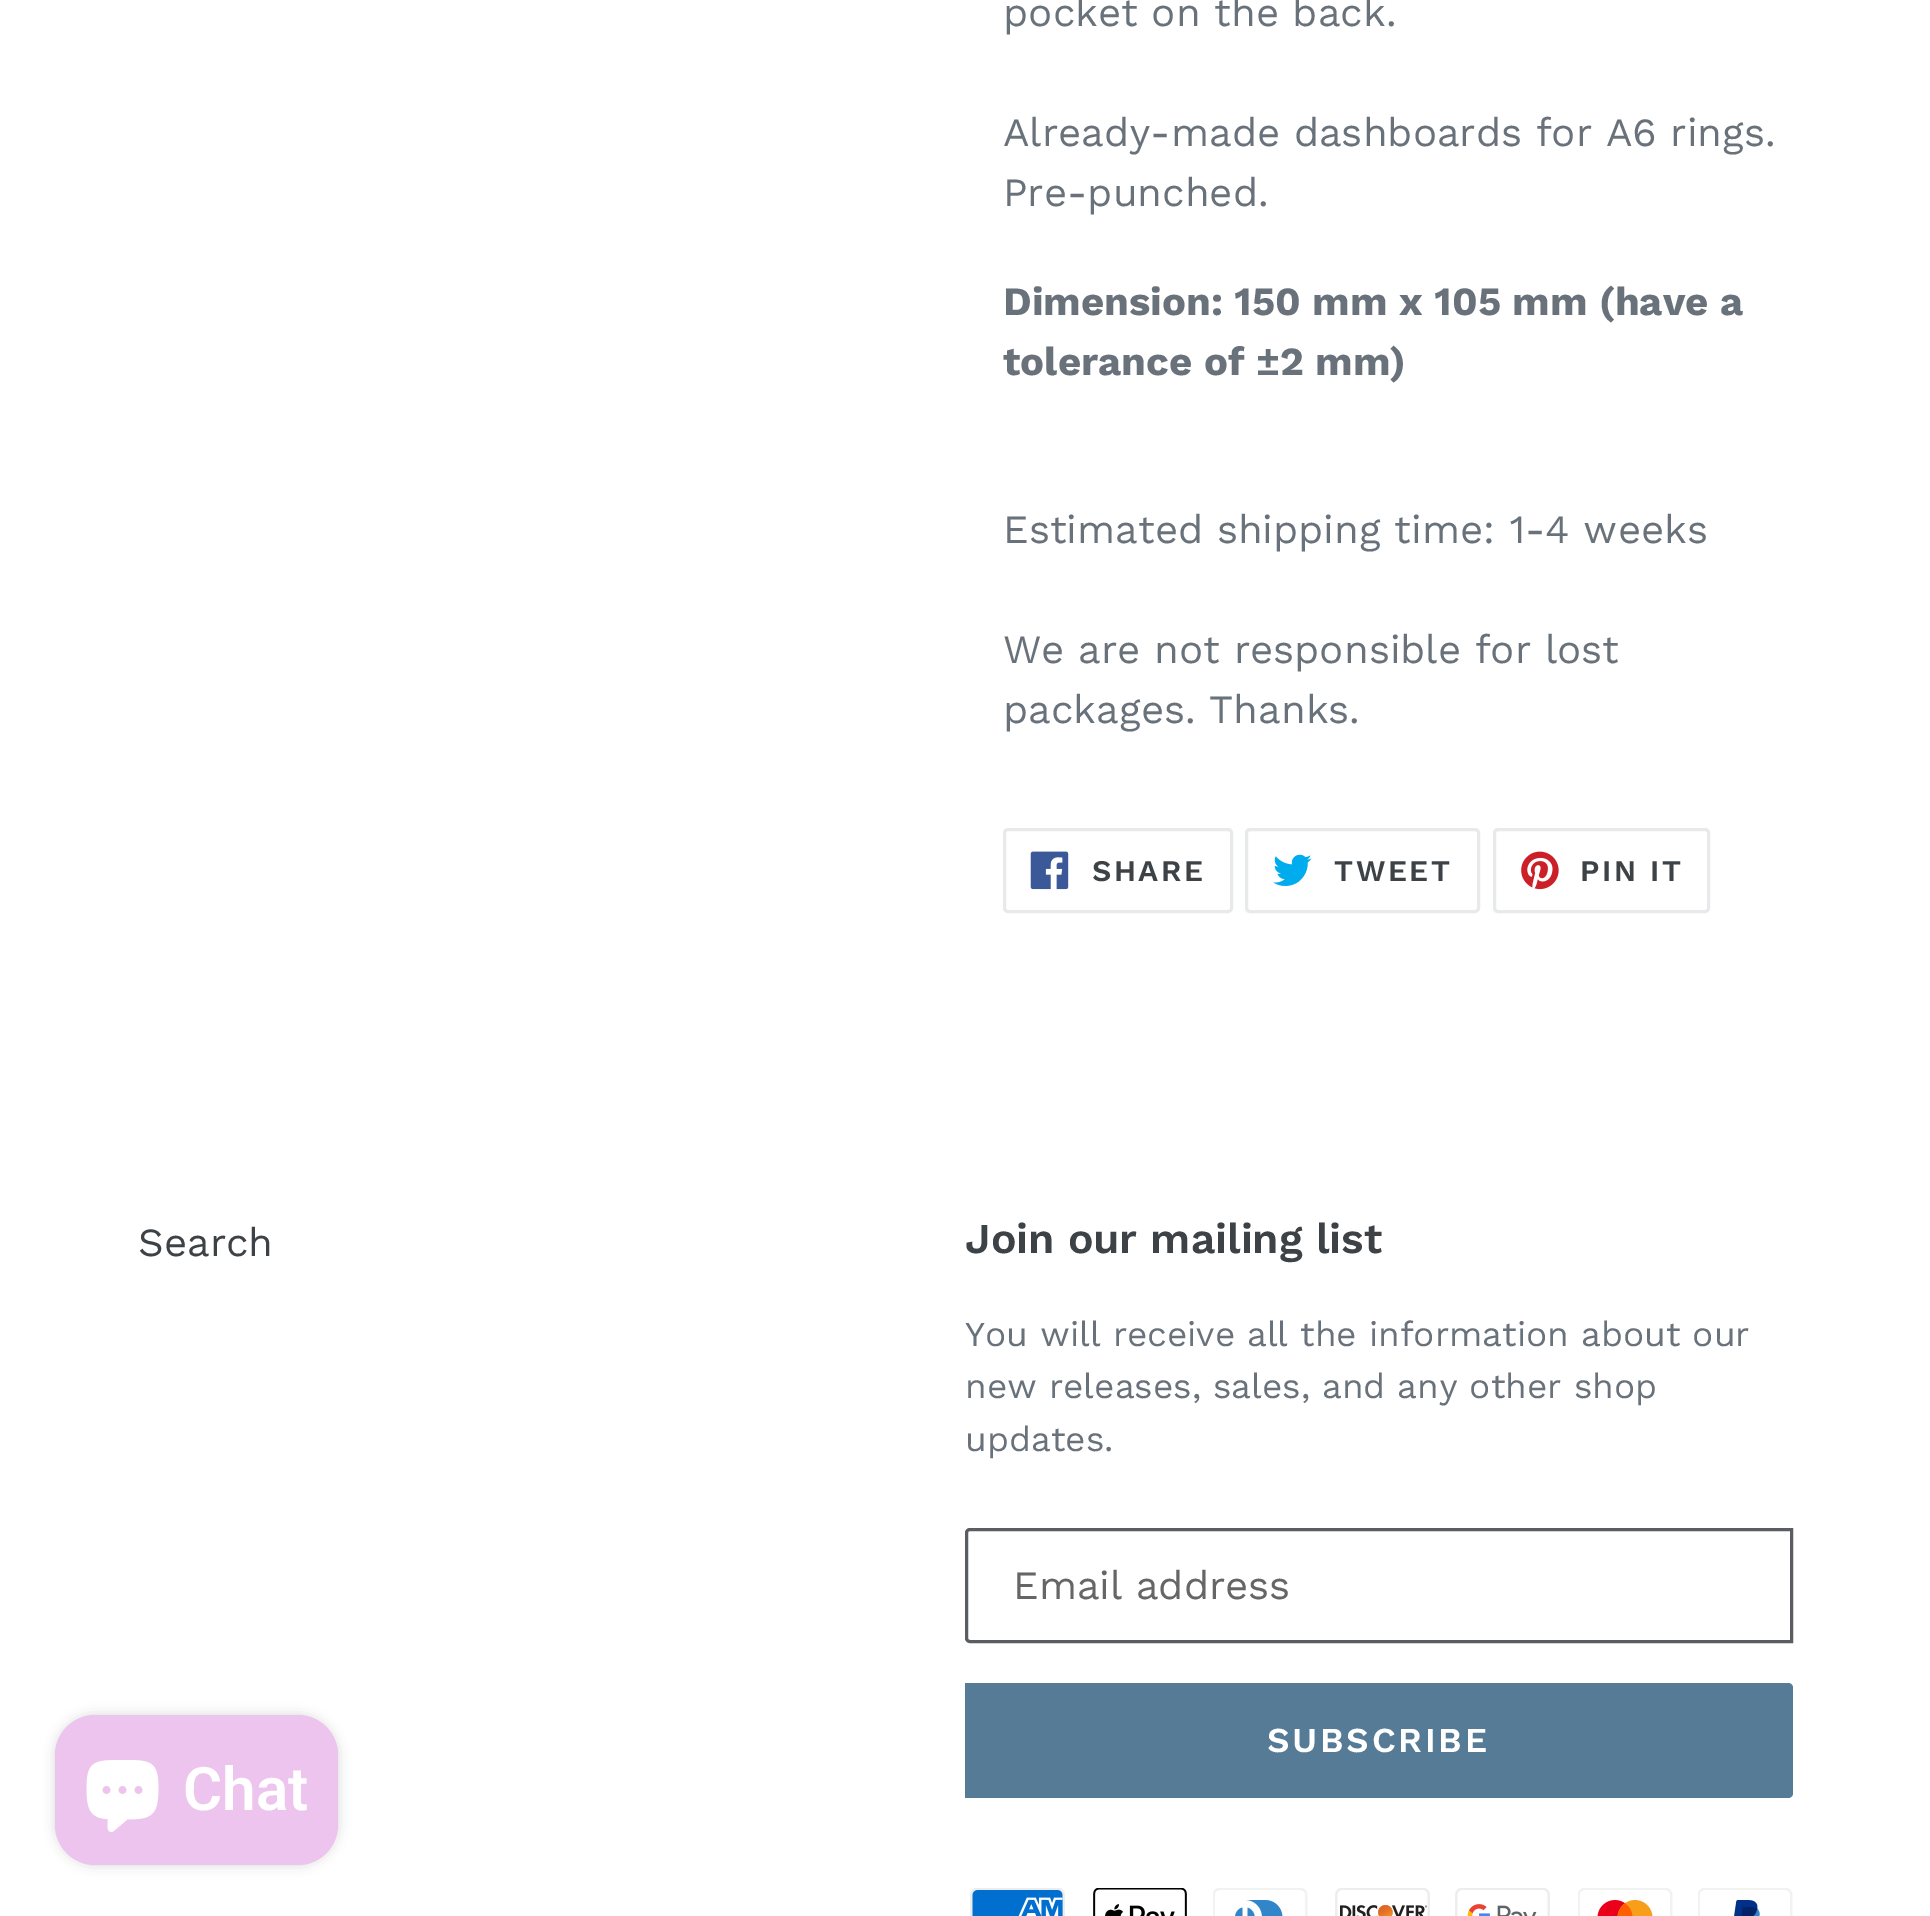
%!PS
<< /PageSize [1930 1916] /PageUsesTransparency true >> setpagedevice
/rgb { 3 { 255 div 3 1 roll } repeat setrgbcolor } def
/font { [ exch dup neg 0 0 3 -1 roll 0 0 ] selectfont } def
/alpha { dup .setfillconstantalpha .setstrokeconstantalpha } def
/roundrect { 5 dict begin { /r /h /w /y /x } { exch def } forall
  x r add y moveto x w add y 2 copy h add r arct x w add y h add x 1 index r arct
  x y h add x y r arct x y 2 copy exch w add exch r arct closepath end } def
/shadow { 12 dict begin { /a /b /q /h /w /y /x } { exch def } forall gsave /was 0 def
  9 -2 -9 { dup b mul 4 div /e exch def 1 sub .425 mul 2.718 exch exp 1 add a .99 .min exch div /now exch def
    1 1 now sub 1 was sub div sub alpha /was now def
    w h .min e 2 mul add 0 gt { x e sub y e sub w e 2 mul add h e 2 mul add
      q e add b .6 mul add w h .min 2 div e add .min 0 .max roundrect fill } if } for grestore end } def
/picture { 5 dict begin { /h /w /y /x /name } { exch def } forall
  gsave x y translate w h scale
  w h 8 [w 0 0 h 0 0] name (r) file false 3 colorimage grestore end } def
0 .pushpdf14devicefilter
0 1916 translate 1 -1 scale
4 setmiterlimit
255 255 255 rgb
0 0 1930 1916 rectfill
232 233 235 rgb
3 setlinewidth
1004.5 829.5 227 82 3.5 roundrect stroke
(img/1.rgb) 1030 851 39 39 picture
1246.5 829.5 232 82 3.5 roundrect stroke
(img/2.rgb) 1273 854 39 32 picture
1494.5 829.5 214 82 3.5 roundrect stroke
(img/3.rgb) 1521 851 38 39 picture
90 94 98 rgb
970 1529.5 moveto 1791.5 1529.5 lineto 1791.5 1641.5 lineto 970 1641.5 lineto 968 1641.5 966.5 1640 966.5 1638 curveto 966.5 1533 lineto 966.5 1531 968 1529.5 970 1529.5 curveto closepath stroke
85 123 151 rgb
965 1683 moveto 1788 1683 lineto 1791 1683 1793 1685 1793 1688 curveto 1793 1793 lineto 1793 1796 1791 1798 1788 1798 curveto 965 1798 lineto closepath fill
(img/4.rgb) 970 1888 95 28 picture
(img/5.rgb) 1093 1888 94 28 picture
(img/6.rgb) 1213 1888 95 28 picture
(img/7.rgb) 1335 1888 95 28 picture
(img/8.rgb) 1455 1888 95 28 picture
(img/9.rgb) 1578 1888 95 28 picture
(img/10.rgb) 1698 1888 95 28 picture
0 0 0 rgb
55 1715 283 150 40 6 0.15 shadow
237 196 237 rgb
55 1715 283 150 40 roundrect fill
(img/11.rgb) 86 1760 73 72 picture
/WorkSans-Regular 40 font
105 114 123 rgb
[
  [(pocket on the back.) 1003 26]
  [(Already-made dashboards for A6 rings.) 1003 146]
  [(Pre-punched.) 1003 206]
] { aload pop moveto show } forall
/WorkSans-Bold 40 font
1003 315 moveto (Dimension: 150 mm x 105 mm \(have a) show
1003 375 moveto (tolerance of ±2 mm\)) show
/WorkSans-Regular 40 font
[
  [(Estimated shipping time: 1-4 weeks) 1003 543]
  [(We are not responsible for lost) 1003 663]
  [(packages. Thanks.) 1003 723]
] { aload pop moveto show } forall
/WorkSans-SemiBold 30 font
61 66 70 rgb
1092 881 moveto 2.5 0 (SHARE) ashow
1334 881 moveto 2.5 0 (TWEET) ashow
1580 881 moveto 2.5 0 (PIN IT) ashow
/WorkSans-Regular 40 font
138 1256 moveto (Search) show
/WorkSans-SemiBold 42.5 font
965 1253 moveto (Join our mailing list) show
/WorkSans-Regular 35 font
105 114 123 rgb
[
  [(You will receive all the information about our) 965 1346]
  [(new releases, sales, and any other shop) 965 1398]
  [(updates.) 965 1451]
] { aload pop moveto show } forall
/WorkSans-Regular 40 font
102 102 102 rgb
1013 1599 moveto (Email address) show
/WorkSans-SemiBold 35 font
255 255 255 rgb
1267 1752 moveto 2.75 0 (SUBSCRIBE) ashow
/Roboto-SemiBold 60 font
183 1810 moveto (Chat) show
.poppdf14devicefilter showpage
